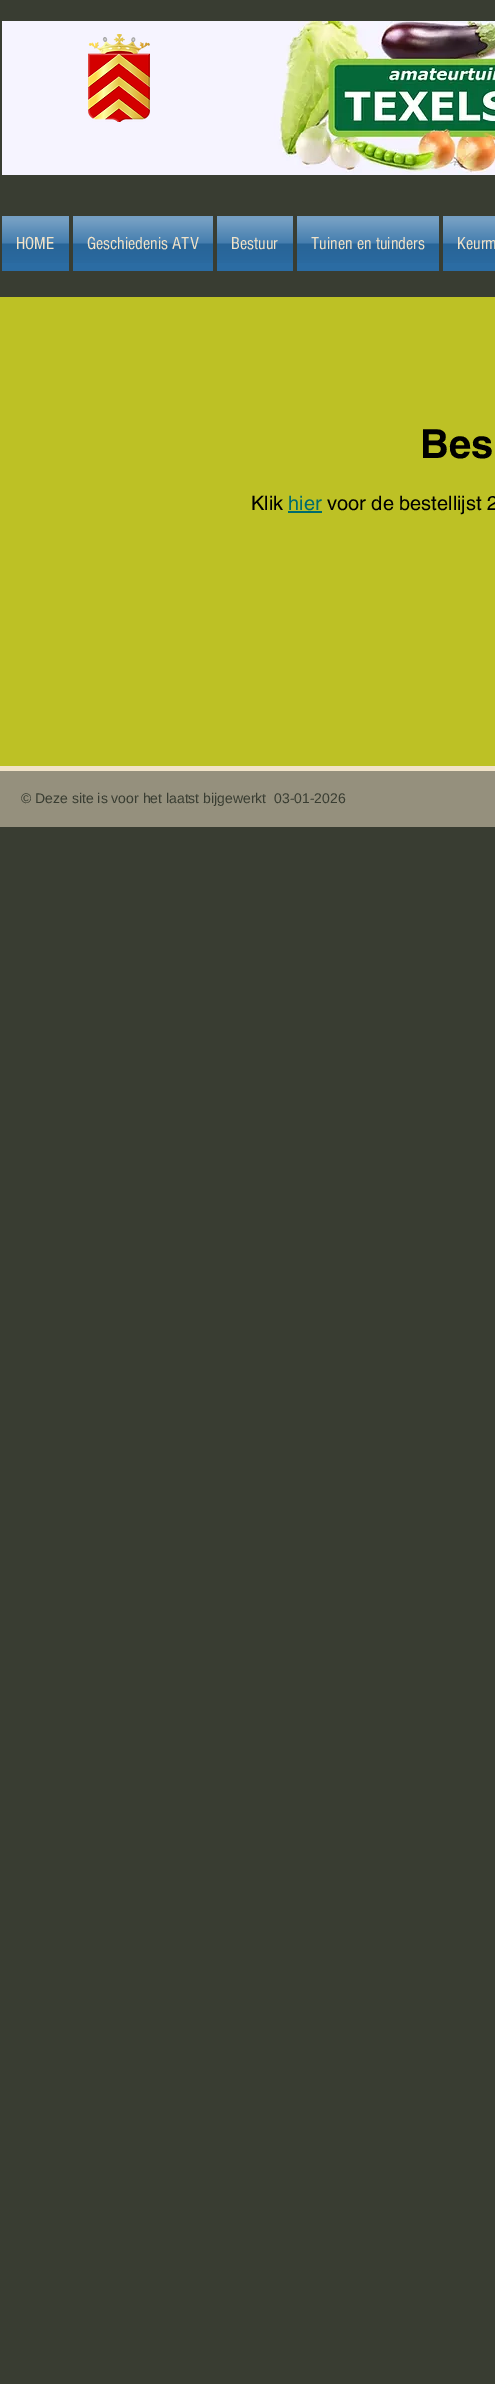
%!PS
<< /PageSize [495 2384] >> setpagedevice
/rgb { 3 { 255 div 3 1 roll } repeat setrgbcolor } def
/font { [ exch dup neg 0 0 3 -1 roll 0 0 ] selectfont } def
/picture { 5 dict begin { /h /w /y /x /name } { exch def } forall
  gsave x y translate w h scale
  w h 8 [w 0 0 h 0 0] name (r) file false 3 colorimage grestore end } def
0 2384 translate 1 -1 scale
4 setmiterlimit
57 61 50 rgb
0 0 495 2384 rectfill
(img/1.rgb) 2 21 493 154 picture
(img/2.rgb) 88 34 62 88 picture
43 108 163 rgb
2 216 67 55 rectfill
(img/3.rgb) 2 216 67 47 picture
73 216 140 55 rectfill
(img/4.rgb) 73 216 140 47 picture
217 216 76 55 rectfill
(img/5.rgb) 217 216 76 47 picture
297 216 142 55 rectfill
(img/6.rgb) 297 216 142 47 picture
443 216 52 55 rectfill
(img/7.rgb) 443 216 52 47 picture
[
  [0 297 495 469 189 193 37]
  [288 511 34 2 0 108 109]
  [0 771 495 56 149 144 125]
  [0 766 495 5 241 227 200]
] { aload pop rgb rectfill } forall
/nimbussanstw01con-Regular 18 font
[
  [(HOME) 16 249]
  [(Geschiedenis ATV) 87 249]
  [(Bestuur) 231 249]
  [(Tuinen en tuinders) 311 249]
  [(Keurm) 457 249]
] { aload pop moveto show } forall
/helvetica-Bold 40 font
0 0 0 rgb
420 458 moveto (Bes) show
/helvetica-Regular 20 font
251 510 moveto (Klik) show
0 108 109 rgb
288 510 moveto (hier) show
0 0 0 rgb
327 510 moveto (voor de bestellijst 2) show
/LiberationSans-Regular 14 font
57 61 50 rgb
21 803 moveto (© Deze site is voor het laatst bijgewerkt  03-01-2026) show
showpage
